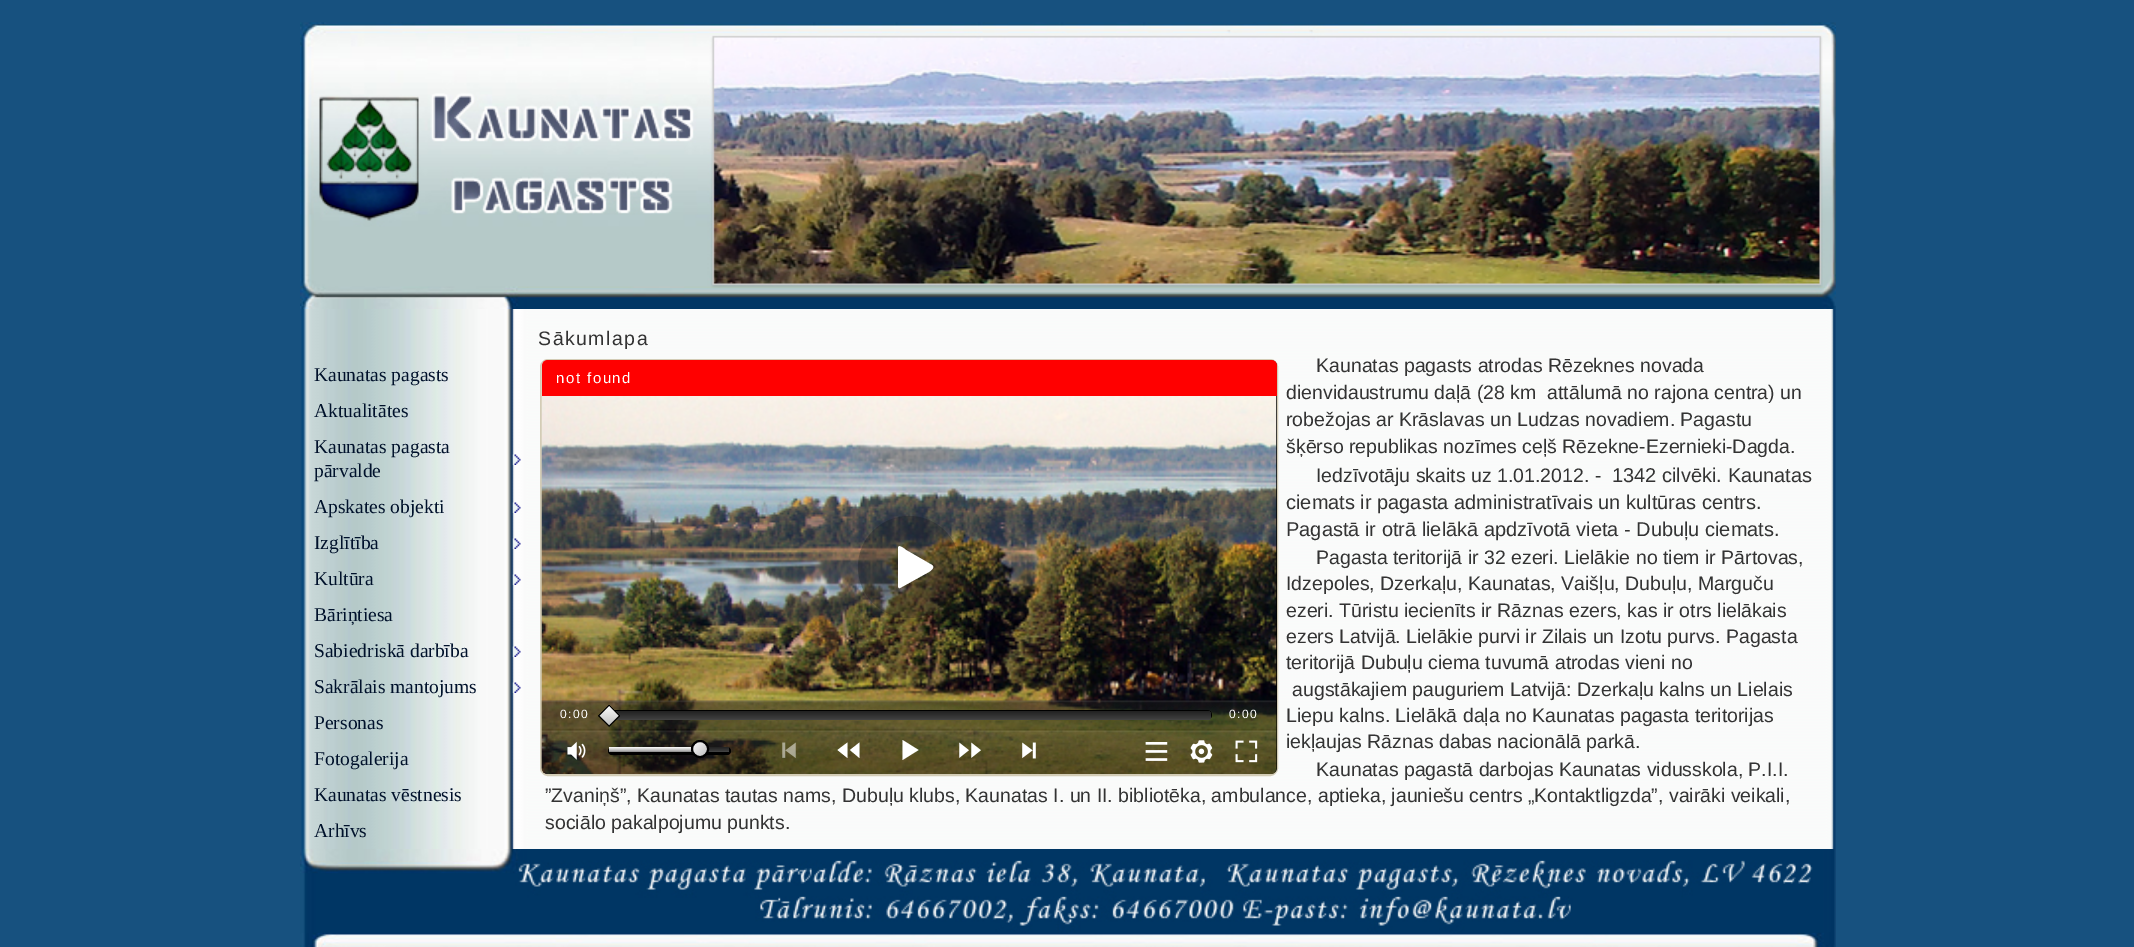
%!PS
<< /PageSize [2134 947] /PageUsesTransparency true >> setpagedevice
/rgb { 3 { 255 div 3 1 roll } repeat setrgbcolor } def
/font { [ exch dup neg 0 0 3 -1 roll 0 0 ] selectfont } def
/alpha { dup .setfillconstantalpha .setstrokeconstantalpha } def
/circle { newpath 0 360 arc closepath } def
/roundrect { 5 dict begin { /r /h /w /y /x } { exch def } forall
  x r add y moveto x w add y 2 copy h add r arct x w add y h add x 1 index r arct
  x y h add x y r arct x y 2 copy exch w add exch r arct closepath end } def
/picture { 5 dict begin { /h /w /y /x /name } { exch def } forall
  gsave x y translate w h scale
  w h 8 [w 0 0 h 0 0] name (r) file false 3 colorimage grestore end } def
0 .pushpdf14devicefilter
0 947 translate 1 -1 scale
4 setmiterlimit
23 81 127 rgb
0 0 2134 947 rectfill
(img/1.rgb) 300 22 1536 287 picture
(img/2.rgb) 301 309 1535 638 picture
(img/3.rgb) 512 454 9 11 picture
(img/3.rgb) 512 502 9 11 picture
(img/3.rgb) 512 538 9 11 picture
(img/3.rgb) 512 574 9 11 picture
(img/3.rgb) 512 646 9 11 picture
(img/3.rgb) 512 682 9 11 picture
211 204 182 rgb
2 setlinewidth
541 360 736 415 7 roundrect stroke
0 0 0 rgb
542 360 735 414 6 roundrect fill
(img/4.rgb) 541 360 736 414 picture
255 0 0 rgb
548 360 moveto 1271 360 lineto 1274.5 360 1277 362.5 1277 366 curveto 1277 396 lineto 542 396 lineto 542 366 lineto 542 362.5 544.5 360 548 360 curveto closepath fill
0.3 alpha
23 23 23 rgb
909 567 51 circle fill
1 alpha
255 255 255 rgb
932 565 moveto 906 550 lineto 906 550 898 543 898 548 curveto 898 586 lineto 898 587 899 589 900 588 curveto 927 573 lineto 929 572 936 568 932 565 curveto closepath fill
(img/5.rgb) 541 700 736 74 picture
0 0 0 rgb
609 710 603 10 5 roundrect fill
gsave 611 711 600 9 4.5 roundrect clip newpath
<< /ShadingType 2 /ColorSpace /DeviceRGB /Coords [911 711 911 720] /Extend [true true] /Function << /FunctionType 2 /Domain [0 1] /C0 [0.129 0.129 0.129] /C1 [0.259 0.259 0.259] /N 1 >> >> shfill grestore
(img/6.rgb) 598 705 22 22 picture
(img/7.rgb) 567 741 19 19 picture
608 747 123 8 4 roundrect fill
gsave 609 747 120 5 2.5 roundrect clip newpath
<< /ShadingType 2 /ColorSpace /DeviceRGB /Coords [669 747 669 752] /Extend [true true] /Function << /FunctionType 2 /Domain [0 1] /C0 [0.129 0.129 0.129] /C1 [0.259 0.259 0.259] /N 1 >> >> shfill grestore
gsave 609 747 96 5 2.5 roundrect clip newpath
<< /ShadingType 2 /ColorSpace /DeviceRGB /Coords [657 747 657 752] /Extend [true true] /Function << /FunctionType 2 /Domain [0 1] /C0 [1 1 1] /C1 [0.588 0.588 0.588] /N 1 >> >> shfill grestore
gsave 700 749 8 circle clip newpath
<< /ShadingType 2 /ColorSpace /DeviceRGB /Coords [692 741 708 757] /Extend [true true] /Function << /FunctionType 2 /Domain [0 1] /C0 [1 1 1] /C1 [0.733 0.733 0.733] /N 1 >> >> shfill grestore
700 749 8 circle stroke
(img/8.rgb) 782 742 14 16 picture
255 255 255 rgb
847.5 742.5 moveto 837.5 750 lineto 847.5 758 lineto closepath 859.5 742.5 moveto 850 750 lineto 859.5 758 lineto closepath fill
902.5 740 moveto 902.5 760 lineto 918.5 750 lineto 902.5 740 lineto fill
(img/9.rgb) 959 742 22 16 picture
(img/10.rgb) 1022 742 14 17 picture
(img/11.rgb) 1145 742 23 19 picture
(img/12.rgb) 1190 740 23 23 picture
(img/13.rgb) 1235 740 23 23 picture
(img/14.rgb) 300 849 1535 98 picture
/LiberationSerif-Regular 19.5 font
0 17 43 rgb
[
  [(Kaunatas pagasts) 314 381]
  [(Aktualitātes) 314 417]
  [(Kaunatas pagasta) 314 453]
  [(pārvalde) 314 477]
  [(Apskates objekti) 314 513]
  [(Izglītība) 314 549]
  [(Kultūra) 314 585]
  [(Bāriņtiesa) 314 621]
  [(Sabiedriskā darbība) 314 657]
  [(Sakrālais mantojums) 314 693]
  [(Personas) 314 729]
  [(Fotogalerija) 314 765]
  [(Kaunatas vēstnesis) 314 801]
  [(Arhīvs) 314 837]
] { aload pop moveto show } forall
/LiberationSans-Regular 19.5 font
51 51 51 rgb
538 345 moveto 1.5 0 (Sākumlapa) ashow
/LiberationSans-Regular 15 font
255 255 255 rgb
556 383 moveto 1.5 0 (not found) ashow
/LiberationSans-Regular 12 font
560 718 moveto 1.5 0 (0:00) ashow
1229 718 moveto 1.5 0 (0:00) ashow
/LiberationSans-Regular 19.5 font
51 51 51 rgb
[
  [(Kaunatas pagasts atrodas Rēzeknes novada) 1316 372]
  [(dienvidaustrumu daļā \(28 km  attālumā no rajona centra\) un) 1286 399]
  [(robežojas ar Krāslavas un Ludzas novadiem. Pagastu) 1286 426]
  [(šķērso republikas nozīmes ceļš Rēzekne-Ezernieki-Dagda.) 1286 453]
  [(Iedzīvotāju skaits uz 1.01.2012. -) 1316 482]
] { aload pop moveto show } forall
/LiberationSans-Regular 20 font
[
  [(1342 cilvēki. Kaunatas) 1612 482]
  [(ciemats ir pagasta administratīvais un kultūras centrs.) 1286 509]
  [(Pagastā ir otrā lielākā apdzīvotā vieta - Dubuļu ciemats.) 1286 536]
] { aload pop moveto show } forall
/LiberationSans-Regular 19.5 font
[
  [(Pagasta teritorijā ir 32 ezeri. Lielākie no tiem ir Pārtovas,) 1316 564]
  [(Idzepoles, Dzerkaļu, Kaunatas, Vaišļu, Dubuļu, Marguču) 1286 590]
  [(ezeri. Tūristu iecienīts ir Rāznas ezers, kas ir otrs lielākais) 1286 617]
  [(ezers Latvijā. Lielākie purvi ir Zilais un Izotu purvs. Pagasta) 1286 643]
  [(teritorijā Dubuļu ciema tuvumā atrodas vieni no) 1286 669]
  [(augstākajiem pauguriem Latvijā: Dzerkaļu kalns un Lielais) 1292 696]
  [(Liepu kalns. Lielākā daļa no Kaunatas pagasta teritorijas) 1286 722]
  [(iekļaujas Rāznas dabas nacionālā parkā.) 1286 748]
  [(Kaunatas pagastā darbojas Kaunatas vidusskola, P.I.I.) 1316 776]
  [(”Zvaniņš”, Kaunatas tautas nams, Dubuļu klubs, Kaunatas I. un II. bibliotēka, ambulance, aptieka, jauniešu centrs „Kontaktligzda”, vairāki veikali,) 545 802]
  [(sociālo pakalpojumu punkts.) 545 829]
] { aload pop moveto show } forall
.poppdf14devicefilter showpage
